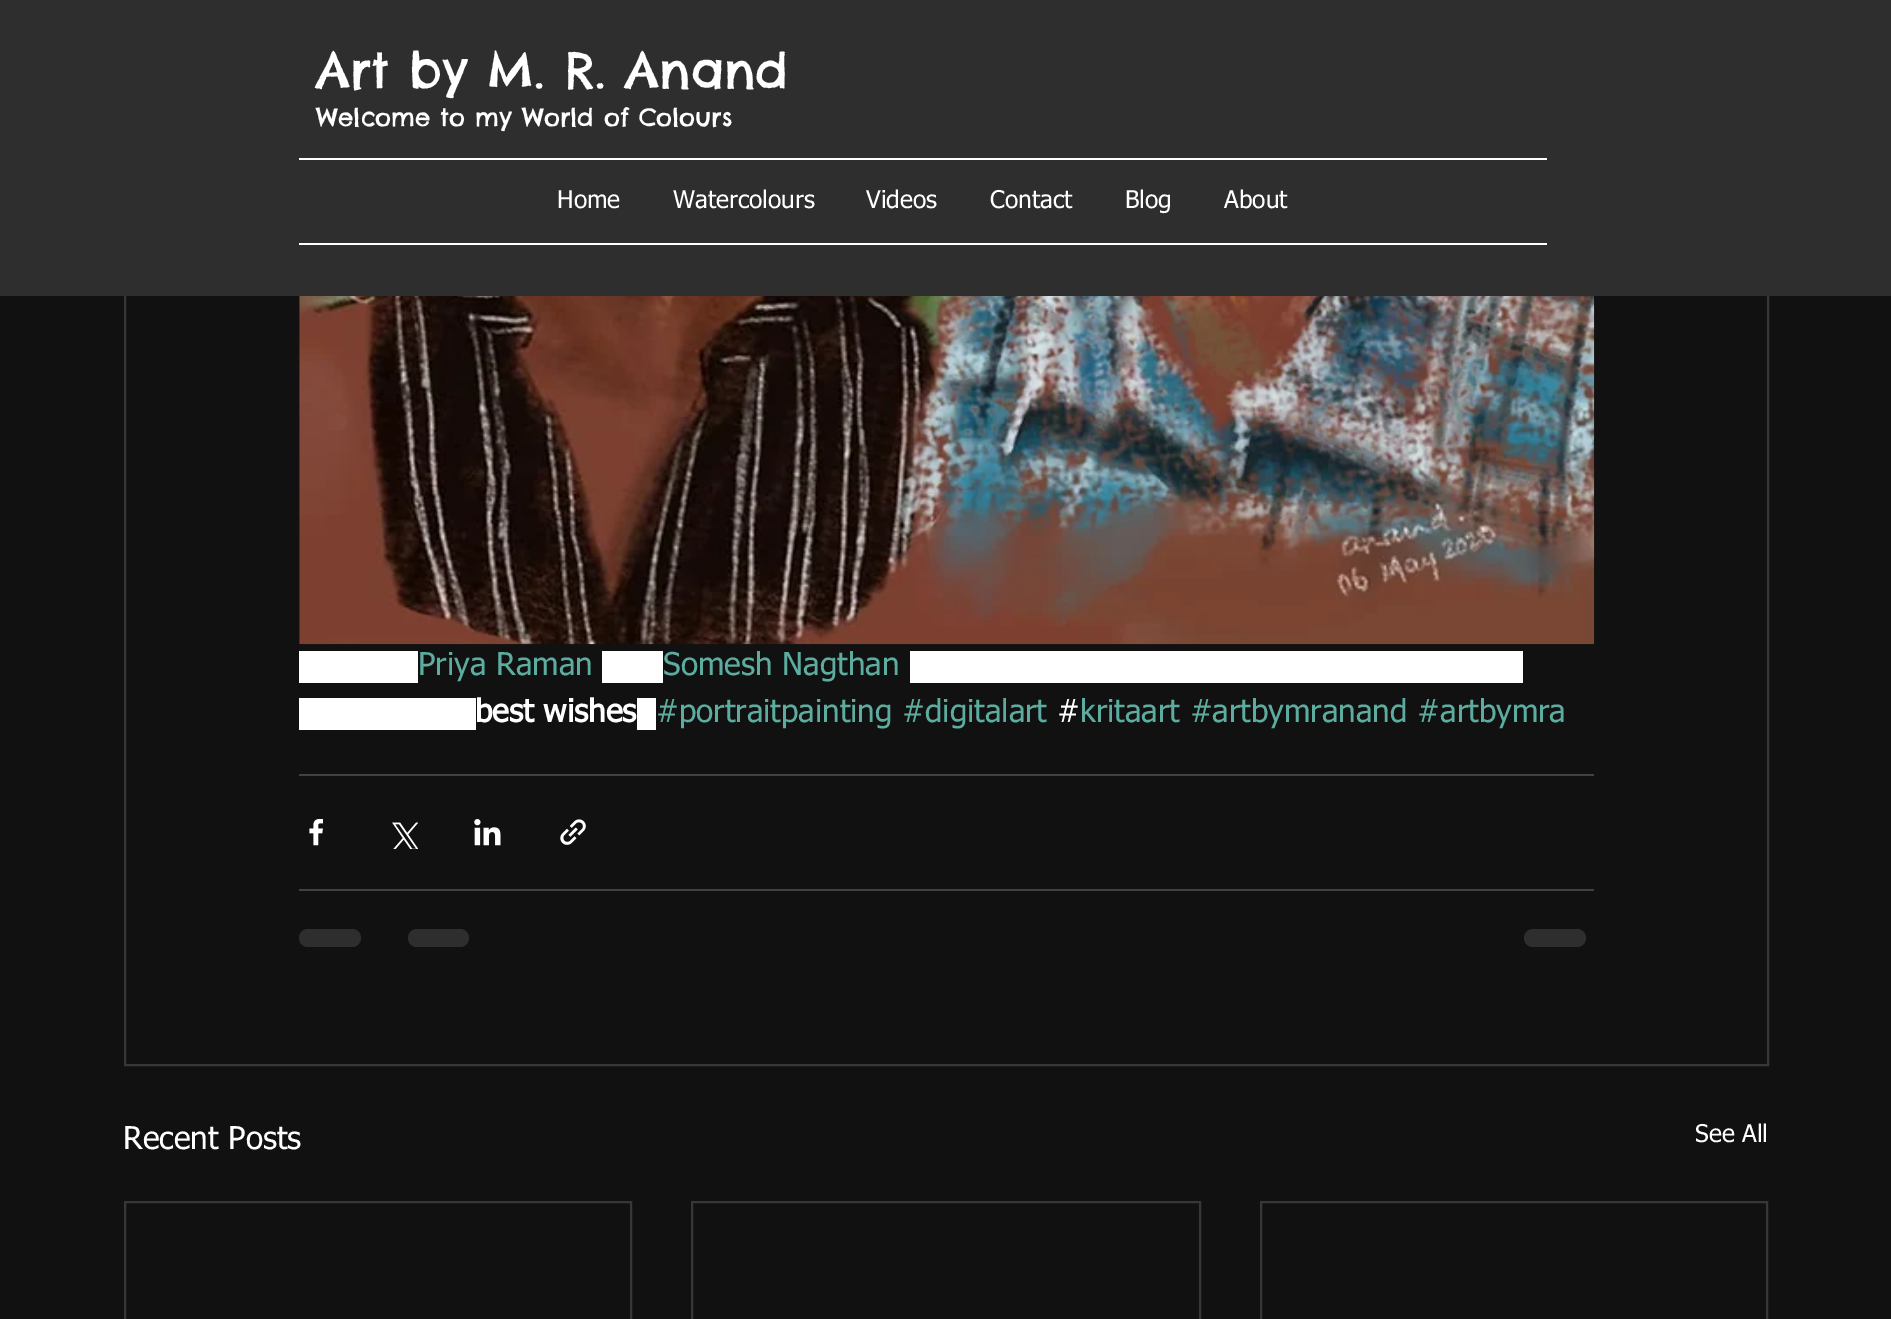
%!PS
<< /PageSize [1891 1319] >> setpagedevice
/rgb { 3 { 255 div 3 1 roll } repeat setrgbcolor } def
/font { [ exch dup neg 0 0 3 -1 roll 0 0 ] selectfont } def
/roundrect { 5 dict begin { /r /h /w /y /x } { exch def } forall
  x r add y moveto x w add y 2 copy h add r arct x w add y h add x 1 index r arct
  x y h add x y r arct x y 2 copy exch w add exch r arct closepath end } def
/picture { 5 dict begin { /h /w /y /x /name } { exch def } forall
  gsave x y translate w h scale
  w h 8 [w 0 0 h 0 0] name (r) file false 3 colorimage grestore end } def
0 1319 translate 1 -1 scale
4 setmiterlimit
17 17 17 rgb
0 0 1891 1319 rectfill
55 55 55 rgb
2 setlinewidth
125 -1 1643 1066 rectstroke
[
  [0 0 1891 296 47 46 46]
  [299 158 1248 2 255 255 255]
  [299 243 1248 2 255 255 255]
] { aload pop rgb rectfill } forall
(img/1.rgb) 299 296 1296 349 picture
[
  [299 651 119 32 255 255 255]
  [602 651 61 32 255 255 255]
  [910 651 613 32 255 255 255]
  [299 698 177 32 255 255 255]
  [637 698 19 32 255 255 255]
  [299 774 1295 2 65 65 65]
] { aload pop rgb rectfill } forall
(img/2.rgb) 309 819 14 27 picture
(img/3.rgb) 392 822 26 27 picture
(img/4.rgb) 474 819 27 27 picture
(img/5.rgb) 560 819 26 26 picture
299 889 1295 2 rectfill
46 46 46 rgb
299 929 62 18 9 roundrect fill
408 929 61 18 9 roundrect fill
1524 929 62 18 9 roundrect fill
55 55 55 rgb
125 1202 506 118 rectstroke
692 1202 508 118 rectstroke
1261 1202 506 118 rectstroke
/ChelseaMarket-Regular 49 font
255 255 255 rgb
316 88 moveto (Art by M. R. Anand) show
/ChelseaMarket-Regular 24.5 font
316 126 moveto (Welcome to my World of Colours) show
/tahoma-Regular 24.5 font
[
  [(Home) 557 208]
  [(Watercolours) 673 208]
  [(Videos) 866 208]
  [(Contact) 990 208]
  [(Blog) 1125 208]
  [(About) 1224 208]
] { aload pop moveto show } forall
/tahoma-Regular 31.5 font
92 173 160 rgb
418 675 moveto (Priya Raman) show
663 675 moveto (Somesh Nagthan) show
/tahoma-Bold 31.5 font
255 255 255 rgb
475 722 moveto (best wishes) show
/tahoma-Regular 31.5 font
92 173 160 rgb
656 722 moveto (#portraitpainting #digitalart) show
255 255 255 rgb
1057 722 moveto (#) show
92 173 160 rgb
1080 722 moveto (kritaart #artbymranand #artbymra) show
255 255 255 rgb
123 1149 moveto (Recent Posts) show
/tahoma-Regular 24.5 font
1695 1142 moveto (See All) show
showpage
